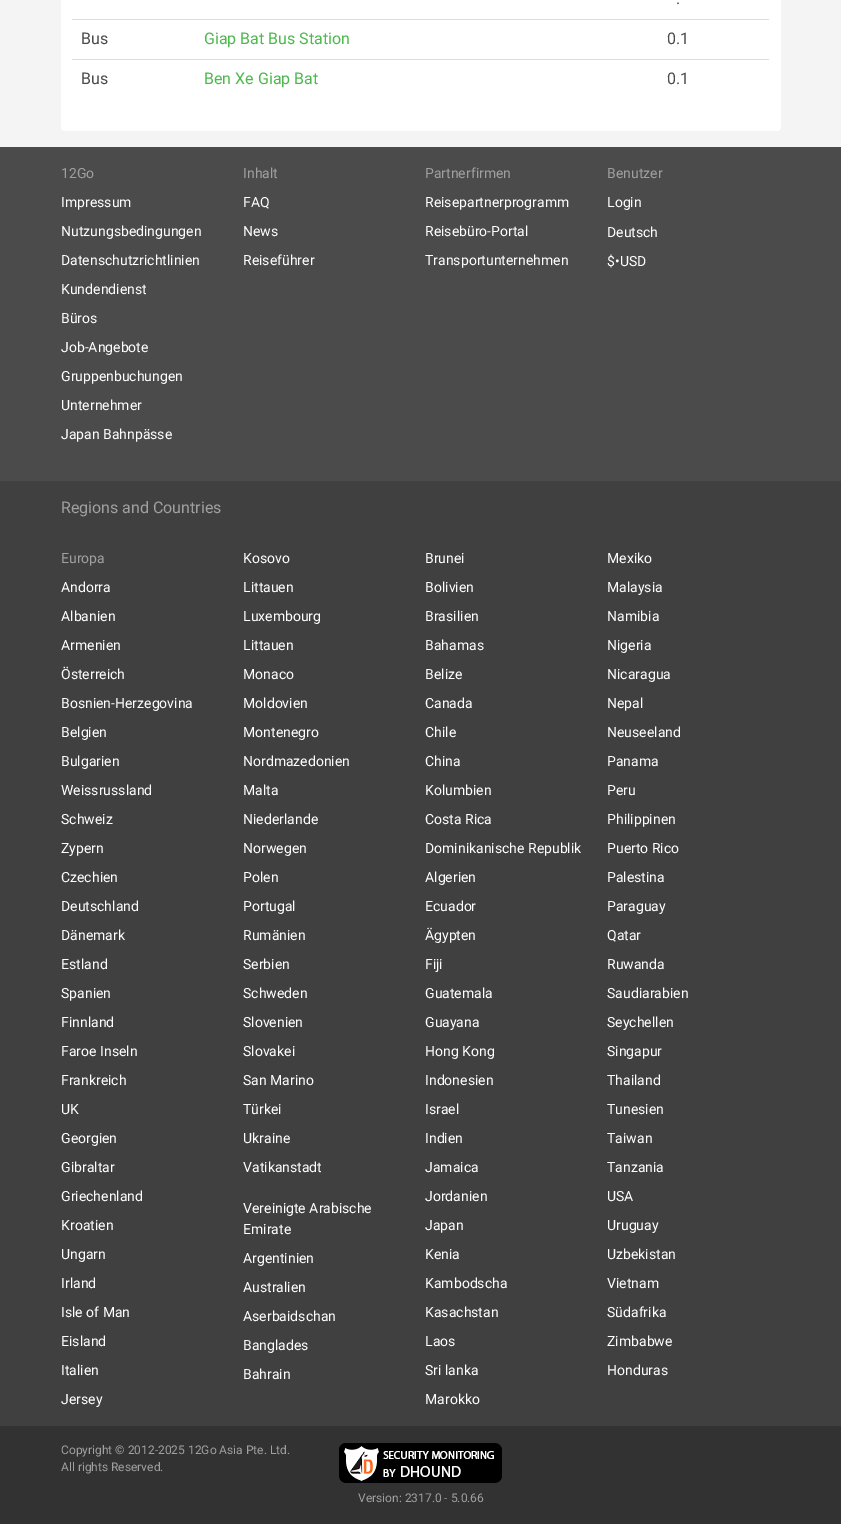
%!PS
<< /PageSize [841 1524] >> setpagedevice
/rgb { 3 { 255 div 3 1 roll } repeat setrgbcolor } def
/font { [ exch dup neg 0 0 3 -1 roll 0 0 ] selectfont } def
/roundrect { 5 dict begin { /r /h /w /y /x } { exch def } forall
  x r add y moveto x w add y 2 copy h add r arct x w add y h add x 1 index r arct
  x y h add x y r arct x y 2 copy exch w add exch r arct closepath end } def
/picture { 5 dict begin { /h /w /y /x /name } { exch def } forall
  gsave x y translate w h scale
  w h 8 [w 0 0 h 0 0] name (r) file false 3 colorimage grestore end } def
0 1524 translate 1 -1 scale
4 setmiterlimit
244 244 244 rgb
0 0 841 1524 rectfill
255 255 255 rgb
61 -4 720 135 4 roundrect fill
[
  [72 19 697 1 221 221 221]
  [72 59 697 1 221 221 221]
  [0 147 841 334 75 75 75]
  [0 481 841 945 64 64 64]
  [0 1426 841 98 50 50 50]
] { aload pop rgb rectfill } forall
(img/1.rgb) 339 1443 163 40 picture
/Roboto-Regular 16 font
75 75 75 rgb
676 4 moveto (.) show
81 44 moveto (Bus) show
77 184 77 rgb
204 44 moveto (Giap Bat Bus Station) show
75 75 75 rgb
667 44 moveto (0.1) show
81 84 moveto (Bus) show
77 184 77 rgb
204 84 moveto (Ben Xe Giap Bat) show
75 75 75 rgb
667 84 moveto (0.1) show
/Roboto-Regular 14 font
160 160 160 rgb
61 178 moveto (12Go) show
255 255 255 rgb
[
  [(Impressum) 61 207]
  [(Nutzungsbedingungen) 61 236]
  [(Datenschutzrichtlinien) 61 265]
  [(Kundendienst) 61 294]
  [(Büros) 61 323]
  [(Job-Angebote) 61 352]
  [(Gruppenbuchungen) 61 381]
  [(Unternehmer) 61 410]
  [(Japan Bahnpässe) 61 439]
] { aload pop moveto show } forall
160 160 160 rgb
243 178 moveto (Inhalt) show
255 255 255 rgb
[
  [(FAQ) 243 207]
  [(News) 243 236]
  [(Reiseführer) 243 265]
] { aload pop moveto show } forall
160 160 160 rgb
425 178 moveto (Partnerfirmen) show
255 255 255 rgb
[
  [(Reisepartnerprogramm) 425 207]
  [(Reisebüro-Portal) 425 236]
  [(Transportunternehmen) 425 265]
] { aload pop moveto show } forall
160 160 160 rgb
607 178 moveto (Benutzer) show
255 255 255 rgb
[
  [(Login) 607 207]
  [(Deutsch) 607 237]
  [($•USD) 607 266]
] { aload pop moveto show } forall
/Roboto-Regular 16 font
160 160 160 rgb
61 513 moveto (Regions and Countries) show
/Roboto-Regular 14 font
61 563 moveto (Europa) show
255 255 255 rgb
[
  [(Kosovo) 243 563]
  [(Andorra) 61 592]
  [(Littauen) 243 592]
  [(Albanien) 61 621]
  [(Luxembourg) 243 621]
  [(Armenien) 61 650]
  [(Littauen) 243 650]
  [(Österreich) 61 679]
  [(Monaco) 243 679]
  [(Bosnien-Herzegovina) 61 708]
  [(Moldovien) 243 708]
  [(Belgien) 61 737]
  [(Montenegro) 243 737]
  [(Bulgarien) 61 766]
  [(Nordmazedonien) 243 766]
  [(Weissrussland) 61 795]
  [(Malta) 243 795]
  [(Schweiz) 61 824]
  [(Niederlande) 243 824]
  [(Zypern) 61 853]
  [(Norwegen) 243 853]
  [(Czechien) 61 882]
  [(Polen) 243 882]
  [(Deutschland) 61 911]
  [(Portugal) 243 911]
  [(Dänemark) 61 940]
  [(Rumänien) 243 940]
  [(Estland) 61 969]
  [(Serbien) 243 969]
  [(Spanien) 61 998]
  [(Schweden) 243 998]
  [(Finnland) 61 1027]
  [(Slovenien) 243 1027]
  [(Faroe Inseln) 61 1056]
  [(Slovakei) 243 1056]
  [(Frankreich) 61 1085]
  [(San Marino) 243 1085]
  [(UK) 61 1114]
  [(Türkei) 243 1114]
  [(Georgien) 61 1143]
  [(Ukraine) 243 1143]
  [(Gibraltar) 61 1172]
  [(Vatikanstadt) 243 1172]
  [(Griechenland) 61 1201]
  [(Kroatien) 61 1230]
  [(Ungarn) 61 1259]
  [(Irland) 61 1288]
  [(Isle of Man) 61 1317]
  [(Eisland) 61 1346]
  [(Italien) 61 1375]
  [(Jersey) 61 1404]
  [(Brunei) 425 563]
  [(Mexiko) 607 563]
  [(Bolivien) 425 592]
  [(Malaysia) 607 592]
  [(Brasilien) 425 621]
  [(Namibia) 607 621]
  [(Bahamas) 425 650]
  [(Nigeria) 607 650]
  [(Belize) 425 679]
  [(Nicaragua) 607 679]
  [(Canada) 425 708]
  [(Nepal) 607 708]
  [(Chile) 425 737]
  [(Neuseeland) 607 737]
  [(China) 425 766]
  [(Panama) 607 766]
  [(Kolumbien) 425 795]
  [(Peru) 607 795]
  [(Costa Rica) 425 824]
  [(Philippinen) 607 824]
  [(Dominikanische Republik) 425 853]
  [(Puerto Rico) 607 853]
  [(Algerien) 425 882]
  [(Palestina) 607 882]
  [(Ecuador) 425 911]
  [(Paraguay) 607 911]
  [(Ägypten) 425 940]
  [(Qatar) 607 940]
  [(Fiji) 425 969]
  [(Ruwanda) 607 969]
  [(Guatemala) 425 998]
  [(Saudiarabien) 607 998]
  [(Guayana) 425 1027]
  [(Seychellen) 607 1027]
  [(Hong Kong) 425 1056]
  [(Singapur) 607 1056]
  [(Indonesien) 425 1085]
  [(Thailand) 607 1085]
  [(Israel) 425 1114]
  [(Tunesien) 607 1114]
  [(Indien) 425 1143]
  [(Taiwan) 607 1143]
  [(Jamaica) 425 1172]
  [(Tanzania) 607 1172]
  [(Jordanien) 425 1201]
  [(USA) 607 1201]
  [(Vereinigte Arabische) 243 1213]
  [(Emirate) 243 1234]
  [(Japan) 425 1230]
  [(Uruguay) 607 1230]
  [(Argentinien) 243 1263]
  [(Kenia) 425 1259]
  [(Uzbekistan) 607 1259]
  [(Australien) 243 1292]
  [(Kambodscha) 425 1288]
  [(Vietnam) 607 1288]
  [(Aserbaidschan) 243 1321]
  [(Kasachstan) 425 1317]
  [(Südafrika) 607 1317]
  [(Banglades) 243 1350]
  [(Laos) 425 1346]
  [(Zimbabwe) 607 1346]
  [(Bahrain) 243 1379]
  [(Sri lanka) 425 1375]
  [(Honduras) 607 1375]
  [(Marokko) 425 1404]
] { aload pop moveto show } forall
/Roboto-Regular 12 font
160 160 160 rgb
[
  [(Copyright © 2012-2025 12Go Asia Pte. Ltd.) 61 1454]
  [(All rights Reserved.) 61 1471]
  [(Version: 2317.0 - 5.0.66) 358 1502]
] { aload pop moveto show } forall
showpage
